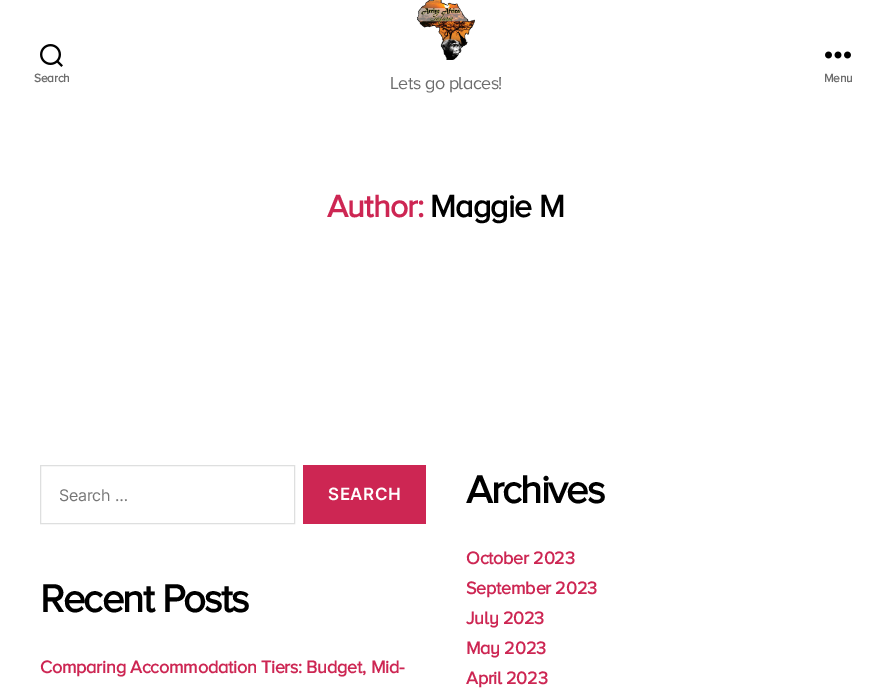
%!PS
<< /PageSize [891 691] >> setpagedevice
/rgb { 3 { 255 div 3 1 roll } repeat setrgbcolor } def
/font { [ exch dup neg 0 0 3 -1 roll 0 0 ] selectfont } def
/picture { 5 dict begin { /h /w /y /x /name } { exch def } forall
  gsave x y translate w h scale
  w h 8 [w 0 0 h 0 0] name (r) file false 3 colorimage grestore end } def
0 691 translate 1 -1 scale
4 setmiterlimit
255 255 255 rgb
0 0 891 691 rectfill
(img/1.rgb) 40 44 23 23 picture
(img/2.rgb) 416 0 59 60 picture
(img/3.rgb) 825 51 26 8 picture
222 223 223 rgb
40.5 465.5 254 58 rectstroke
205 38 83 rgb
303 465 123 59 rectfill
/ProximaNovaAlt-Bold 12 font
109 109 109 rgb
34 82 moveto -0.25 0 (Search) ashow
/ProximaNovaAlt-Regular 18 font
390 89 moveto -0.5 0 (Lets go places!) ashow
/ProximaNovaAlt-Bold 12 font
824 82 moveto -0.25 0 (Menu) ashow
/ProximaNovaAlt-Bold 32 font
205 38 83 rgb
327 217 moveto -0.75 0 (Author:) ashow
0 0 0 rgb
430 217 moveto -0.75 0 (Maggie M) ashow
/Inter-Regular 16 font
117 117 117 rgb
59 501 moveto -0.25 0 (Search …) ashow
/Inter-SemiBold 17 font
255 255 255 rgb
328 500 moveto 0.5 0 (SEARCH) ashow
/ProximaNovaAlt-Bold 40 font
0 0 0 rgb
40 612 moveto -1.7 0 (Recent Posts) ashow
/ProximaNovaAlt-Bold 18 font
205 38 83 rgb
40 673 moveto -0.25 0 (Comparing Accommodation Tiers: Budget, Mid-) ashow
/ProximaNovaAlt-Bold 40 font
0 0 0 rgb
466 503 moveto -1.7 0 (Archives) ashow
/ProximaNovaAlt-Bold 18 font
205 38 83 rgb
466 564 moveto -0.25 0 (October 2023) ashow
466 594 moveto -0.25 0 (September 2023) ashow
466 624 moveto -0.25 0 (July 2023) ashow
466 654 moveto -0.25 0 (May 2023) ashow
466 684 moveto -0.25 0 (April 2023) ashow
showpage
